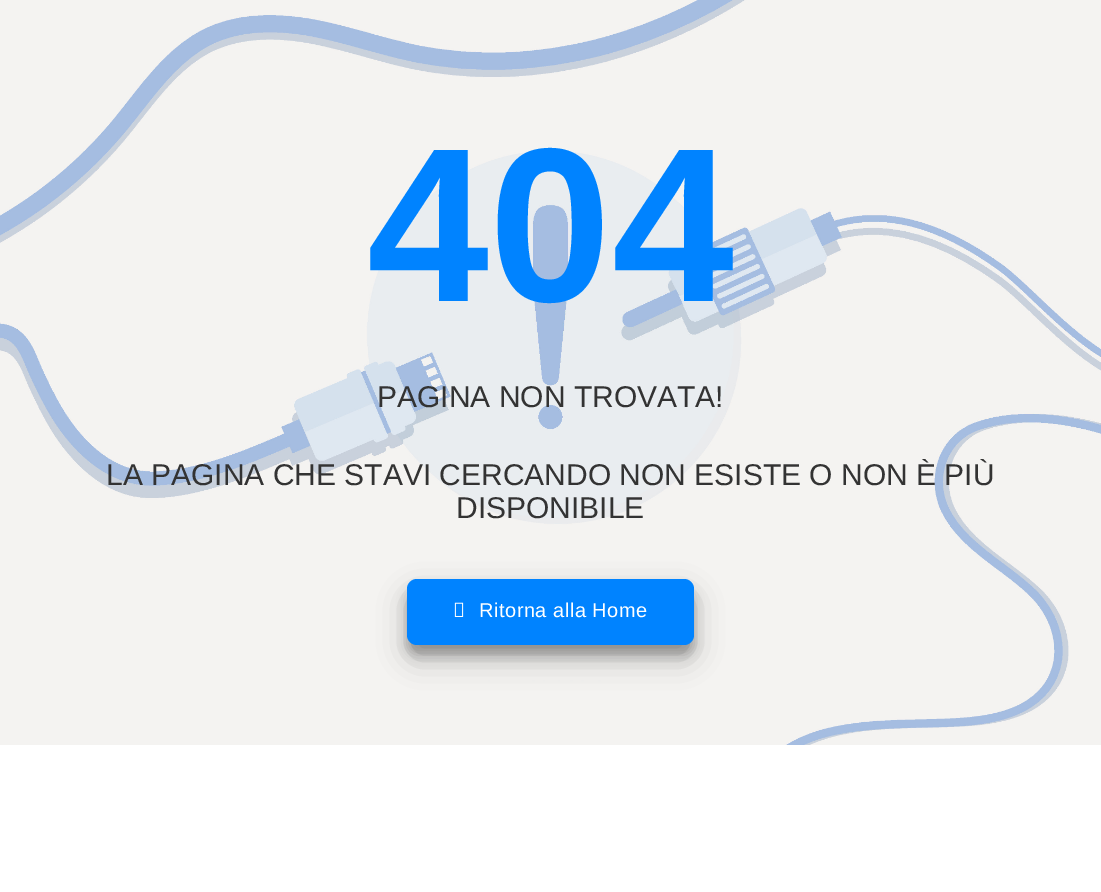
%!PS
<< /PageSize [1101 892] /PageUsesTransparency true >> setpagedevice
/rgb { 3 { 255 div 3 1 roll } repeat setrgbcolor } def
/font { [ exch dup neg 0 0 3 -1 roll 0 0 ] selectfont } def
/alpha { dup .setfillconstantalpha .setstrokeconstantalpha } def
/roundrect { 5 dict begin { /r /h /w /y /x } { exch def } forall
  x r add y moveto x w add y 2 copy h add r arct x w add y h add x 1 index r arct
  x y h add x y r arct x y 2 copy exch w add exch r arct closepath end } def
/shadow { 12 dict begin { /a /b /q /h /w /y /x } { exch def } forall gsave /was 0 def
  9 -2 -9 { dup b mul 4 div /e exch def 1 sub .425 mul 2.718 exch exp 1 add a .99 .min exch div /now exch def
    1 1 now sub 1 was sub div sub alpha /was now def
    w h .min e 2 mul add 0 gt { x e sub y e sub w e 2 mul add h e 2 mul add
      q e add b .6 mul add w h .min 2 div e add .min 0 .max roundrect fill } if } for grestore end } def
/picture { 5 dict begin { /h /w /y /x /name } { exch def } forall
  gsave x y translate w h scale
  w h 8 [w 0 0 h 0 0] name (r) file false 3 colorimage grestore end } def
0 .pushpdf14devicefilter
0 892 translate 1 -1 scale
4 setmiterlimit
255 255 255 rgb
0 0 1101 892 rectfill
(img/1.rgb) 0 0 1101 745 picture
0 0 0 rgb
407 589 287 66 10 5 0.22 shadow
407 593 287 66 10 14 0.25 shadow
0 131 255 rgb
407 579 287 66 10 roundrect fill
(img/2.rgb) 454 602 10 15 picture
/LiberationSans-Bold 220 font
367 301 moveto (404) show
/LiberationSans-Regular 30 font
51 51 51 rgb
[
  [(PAGINA NON TROVATA!) 377 407]
  [(LA PAGINA CHE STAVI CERCANDO NON ESISTE O NON È PIÙ) 106 485]
  [(DISPONIBILE) 456 518]
] { aload pop moveto show } forall
/LiberationSans-Regular 20 font
255 255 255 rgb
479 617 moveto 0.5 0 (Ritorna alla Home) ashow
.poppdf14devicefilter showpage
